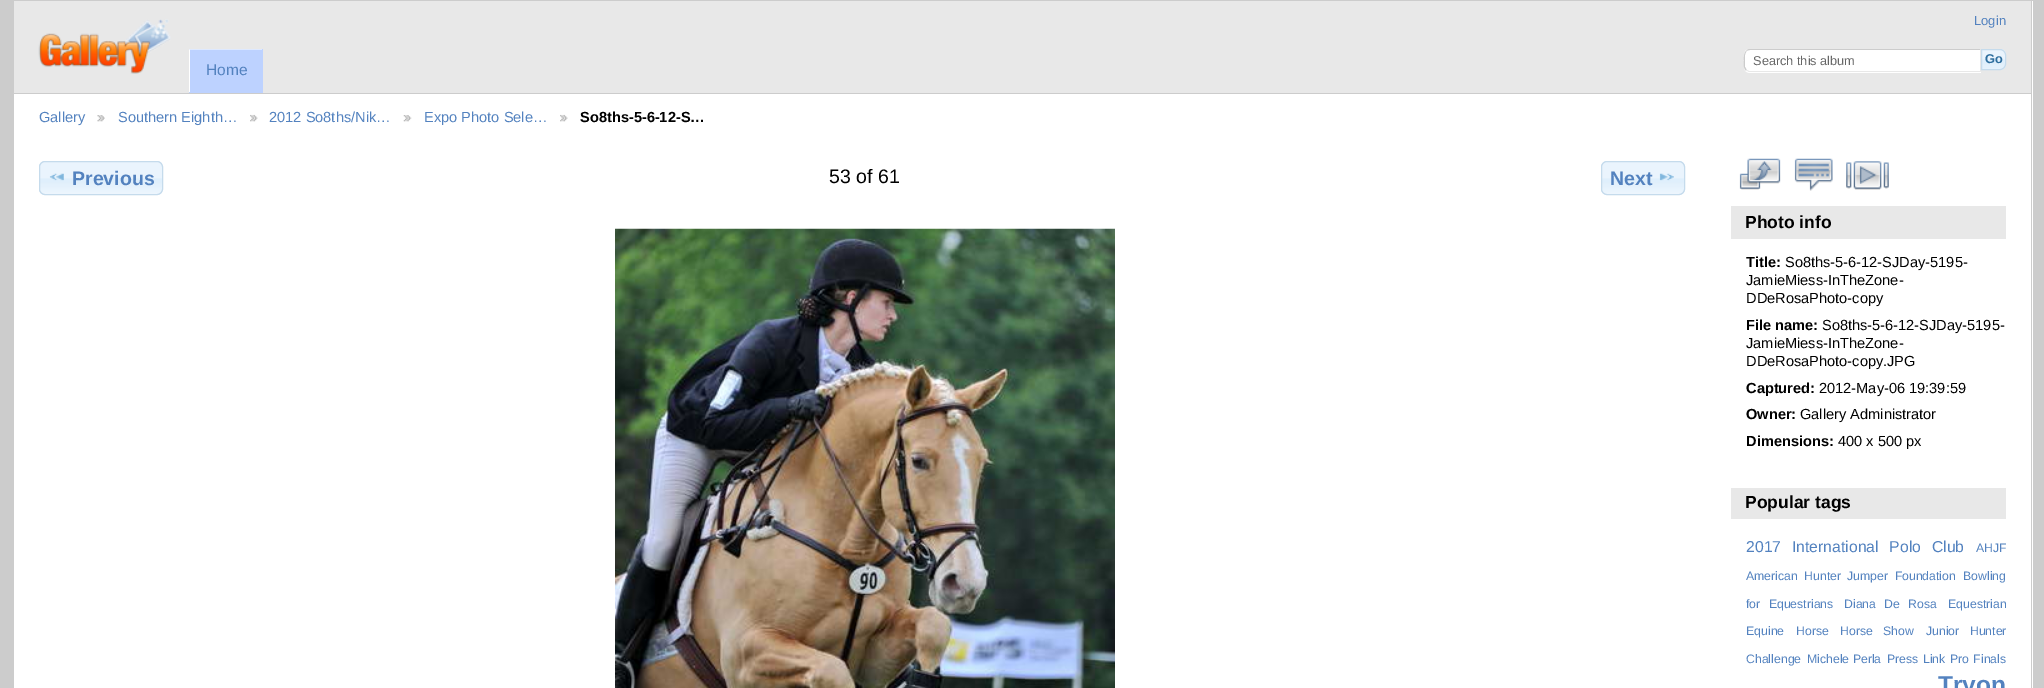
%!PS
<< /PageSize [2044 688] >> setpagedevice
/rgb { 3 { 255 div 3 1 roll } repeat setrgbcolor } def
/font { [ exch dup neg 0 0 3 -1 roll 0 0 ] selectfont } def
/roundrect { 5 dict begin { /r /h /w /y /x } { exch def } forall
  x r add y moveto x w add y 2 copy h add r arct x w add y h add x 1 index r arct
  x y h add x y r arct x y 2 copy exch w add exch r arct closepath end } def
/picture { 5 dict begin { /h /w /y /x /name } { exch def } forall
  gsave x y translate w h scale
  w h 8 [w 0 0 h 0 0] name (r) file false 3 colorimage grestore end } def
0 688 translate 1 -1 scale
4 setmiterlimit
204 204 204 rgb
0 0 2044 688 rectfill
[
  [14 1 2019 687 255 255 255]
  [2031 0 1 688 204 204 204]
  [14 1 2017 92 232 232 232]
  [14 93 2017 1 204 204 204]
] { aload pop rgb rectfill } forall
(img/1.rgb) 38 19 133 55 picture
255 255 255 rgb
1750 49 moveto 1981 49 lineto 1981 73 lineto 1750 73 lineto 1746.5 73 1744 70.5 1744 67 curveto 1744 55 lineto 1744 51.5 1746.5 49 1750 49 curveto closepath fill
204 204 204 rgb
1750 49 moveto 1748 49 1747 50 1746 51 curveto 1747 51 1748 50 1750 50 curveto 1980 50 lineto 1981 49 lineto closepath fill
232 232 232 rgb
1980 71 moveto 1981 72 lineto 1981 49 lineto 1980 50 lineto closepath fill
1981 72 moveto 1749 72 lineto 1746 70 lineto 1747 70 lineto 1749 71 lineto 1980 71 lineto closepath fill
204 204 204 rgb
1746 51 moveto 1743.5 53.5 1744 57 1744 60.5 curveto 1744 63.5 1743 68 1746 70.5 curveto 1746.5 69.5 lineto 1745 67 lineto 1744.5 65 1745 57.5 1745 55 curveto 1745 54 1745.5 52.5 1746.5 51.5 curveto closepath fill
(img/2.rgb) 1982 49 24 21 picture
197 219 236 rgb
1981.5 49.5 moveto 2000 49.5 lineto 2003 49.5 2005.5 52 2005.5 55 curveto 2005.5 64 lineto 2005.5 67 2003 69.5 2000 69.5 curveto 1981.5 69.5 lineto closepath stroke
189 210 255 rgb
189 49 74 44 rectfill
222 233 255 rgb
189 49 moveto 262 49 lineto 262 50 lineto 190 50 lineto closepath fill
255 255 255 rgb
189 92 moveto 189 49 lineto 190 50 lineto 190 92 lineto closepath fill
(img/3.rgb) 97 115 8 7 picture
(img/4.rgb) 250 114 8 8 picture
(img/5.rgb) 403 115 9 7 picture
(img/6.rgb) 560 114 8 8 picture
(img/7.rgb) 39 161 123 34 picture
197 219 236 rgb
39.5 161.5 123 33 5.5 roundrect stroke
(img/8.rgb) 49 173 15 8 picture
(img/9.rgb) 1601 161 84 34 picture
1601.5 161.5 83 33 5.5 roundrect stroke
(img/10.rgb) 1659 173 15 8 picture
(img/11.rgb) 615 228 500 460 picture
(img/12.rgb) 1739 158 42 32 picture
(img/13.rgb) 1794 158 39 33 picture
(img/14.rgb) 1846 161 43 29 picture
232 232 232 rgb
1731 206 275 33 rectfill
1731 488 275 31 rectfill
/LiberationSans-Regular 13 font
83 130 191 rgb
1974 25 moveto (Login) show
/LiberationSans-Regular 12.75 font
102 102 102 rgb
1753 65 moveto (Search this album) show
/LiberationSans-Bold 12.75 font
46 110 158 rgb
1985 63 moveto (Go) show
/LiberationSans-Regular 15.5 font
83 130 191 rgb
206 75 moveto (Home) show
/LiberationSans-Regular 14.6 font
[
  [(Gallery) 39 122]
  [(Southern Eighth…) 118 122]
  [(2012 So8ths/Nik…) 269 122]
  [(Expo Photo Sele…) 424 122]
] { aload pop moveto show } forall
/LiberationSans-Bold 14.6 font
0 0 0 rgb
580 122 moveto (So8ths-5-6-12-S…) show
/LiberationSans-Bold 19.5 font
83 130 191 rgb
72 185 moveto (Previous) show
/LiberationSans-Regular 19.5 font
0 0 0 rgb
829 183 moveto (53 of 61) show
/LiberationSans-Bold 19.5 font
83 130 191 rgb
1610 185 moveto (Next) show
/LiberationSans-Bold 17.5 font
0 0 0 rgb
1745 228 moveto (Photo info) show
/LiberationSans-Bold 14.6 font
1746 267 moveto (Title:) show
/LiberationSans-Regular 14.6 font
[
  [(So8ths-5-6-12-SJDay-5195-) 1785 267]
  [(JamieMiess-InTheZone-) 1746 285]
  [(DDeRosaPhoto-copy) 1746 303]
] { aload pop moveto show } forall
/LiberationSans-Bold 14.6 font
1746 330 moveto (File name:) show
/LiberationSans-Regular 14.6 font
[
  [(So8ths-5-6-12-SJDay-5195-) 1822 330]
  [(JamieMiess-InTheZone-) 1746 348]
  [(DDeRosaPhoto-copy.JPG) 1746 366]
] { aload pop moveto show } forall
/LiberationSans-Bold 14.6 font
1746 393 moveto (Captured:) show
/LiberationSans-Regular 14.6 font
1819 393 moveto (2012-May-06 19:39:59) show
/LiberationSans-Bold 14.6 font
1746 419 moveto (Owner:) show
/LiberationSans-Regular 14.6 font
1800 419 moveto (Gallery Administrator) show
/LiberationSans-Bold 14.6 font
1746 446 moveto (Dimensions:) show
/LiberationSans-Regular 14.6 font
1838 446 moveto (400 x 500 px) show
/LiberationSans-Bold 17.5 font
1745 508 moveto (Popular tags) show
/LiberationSans-Regular 15.75 font
83 130 191 rgb
1746 552 moveto 6.5 0 32 (2017 International Polo Club) widthshow
/LiberationSans-Regular 12.25 font
1976 552 moveto (AHJF) show
1746 580 moveto 3 0 32 (American Hunter Jumper Foundation) widthshow
1963 580 moveto (Bowling) show
1746 608 moveto 5 0 32 (for Equestrians) widthshow
1844 608 moveto 5 0 32 (Diana De Rosa) widthshow
[
  [(Equestrian) 1948 608]
  [(Equine) 1746 635]
  [(Horse) 1796 635]
] { aload pop moveto show } forall
1840 635 moveto 7 0 32 (Horse Show) widthshow
1926 635 moveto 7 0 32 (Junior Hunter) widthshow
1746 663 moveto (Challenge) show
1807 663 moveto (Michele Perla) show
1887 663 moveto 1 0 32 (Press Link) widthshow
1950 663 moveto 1 0 32 (Pro Finals) widthshow
/LiberationSans-Bold 24.5 font
1938 693 moveto (Tryon) show
showpage
